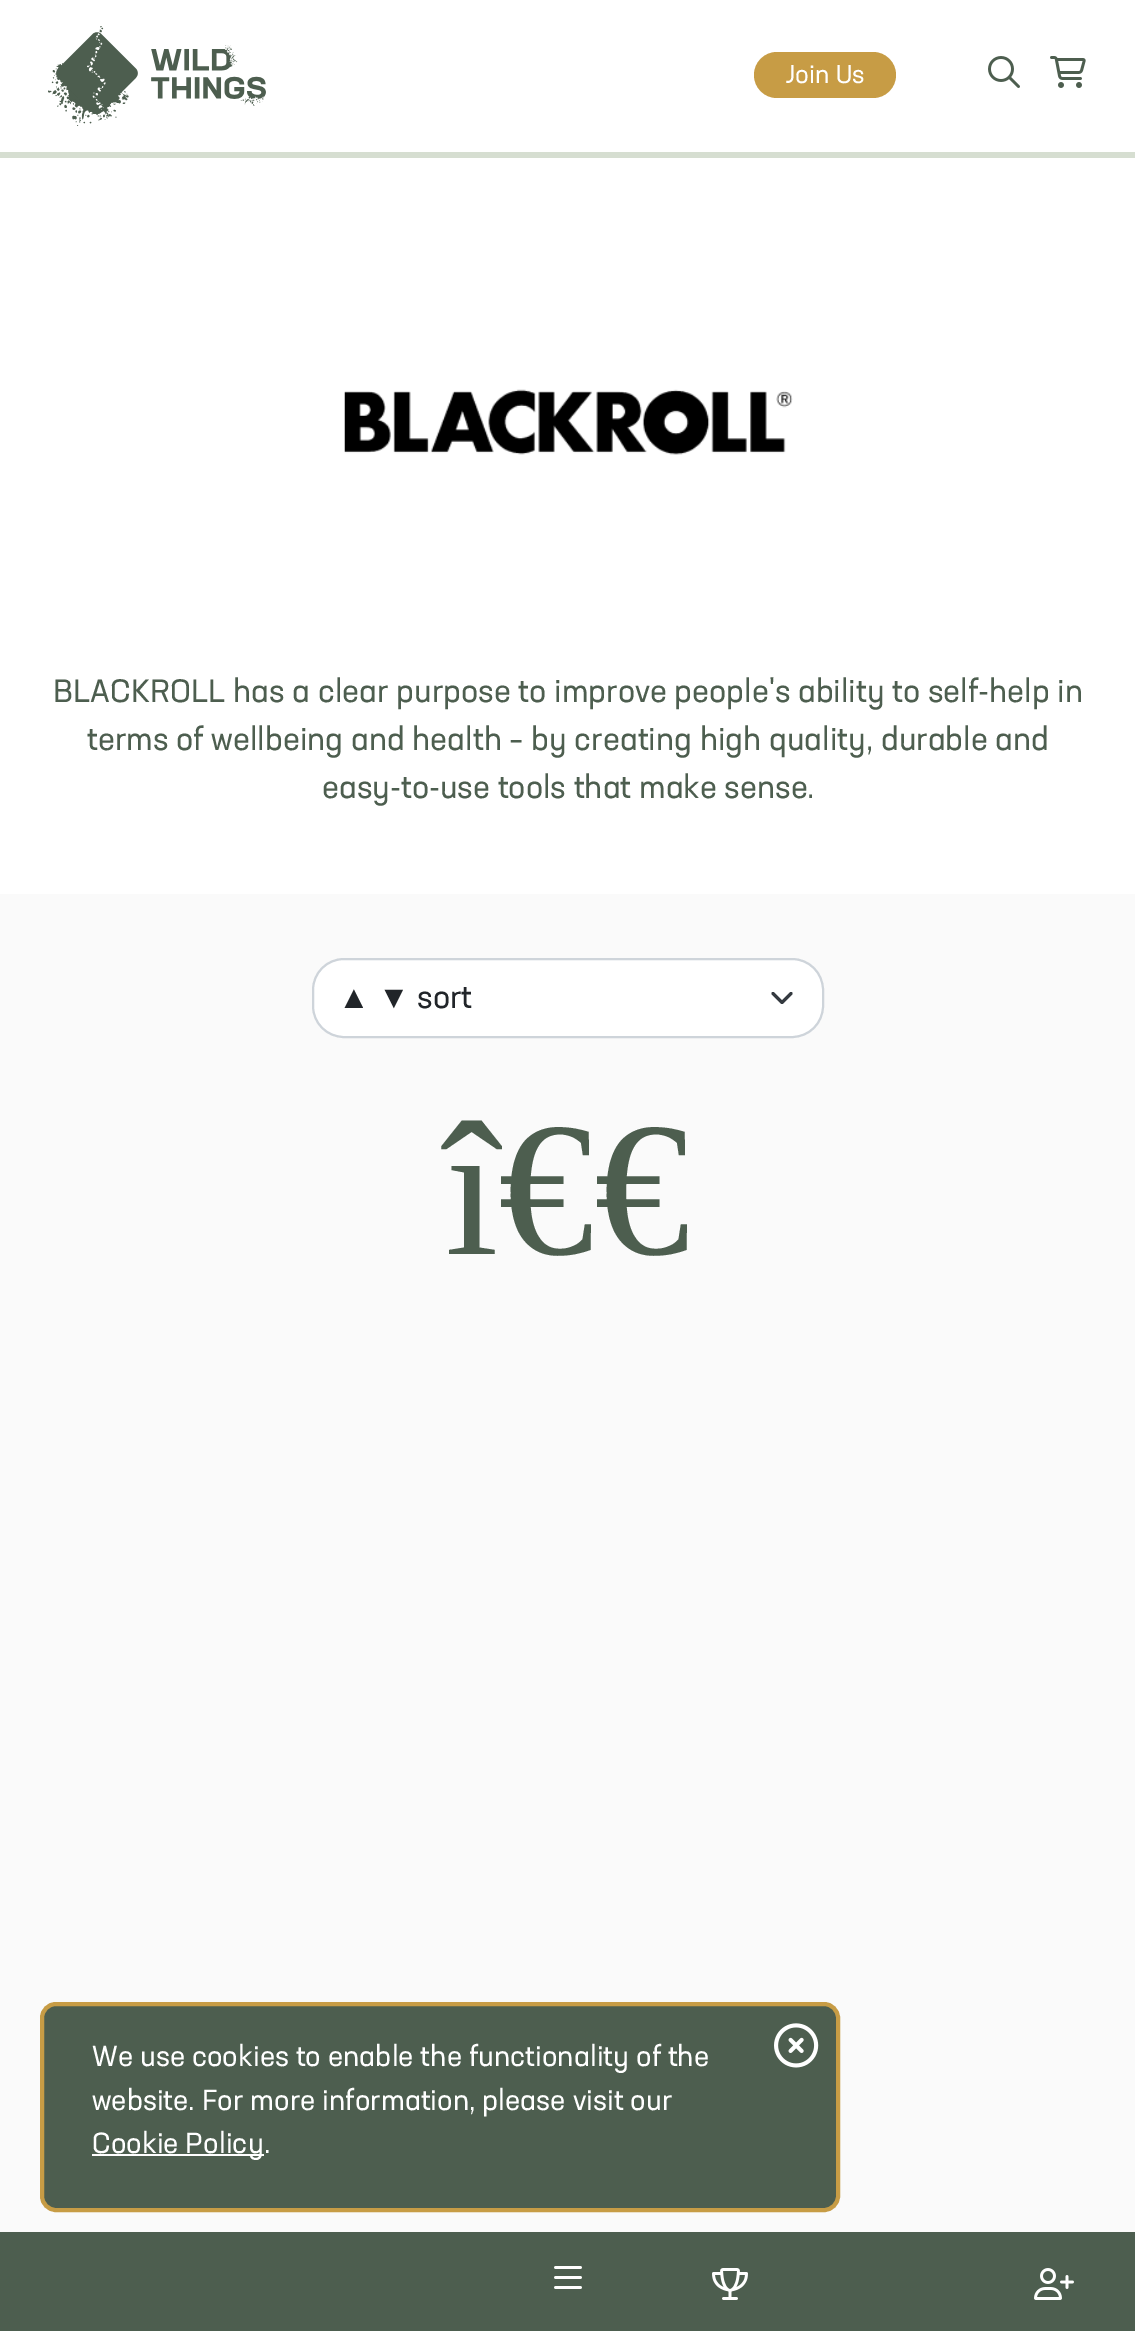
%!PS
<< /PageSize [1135 2331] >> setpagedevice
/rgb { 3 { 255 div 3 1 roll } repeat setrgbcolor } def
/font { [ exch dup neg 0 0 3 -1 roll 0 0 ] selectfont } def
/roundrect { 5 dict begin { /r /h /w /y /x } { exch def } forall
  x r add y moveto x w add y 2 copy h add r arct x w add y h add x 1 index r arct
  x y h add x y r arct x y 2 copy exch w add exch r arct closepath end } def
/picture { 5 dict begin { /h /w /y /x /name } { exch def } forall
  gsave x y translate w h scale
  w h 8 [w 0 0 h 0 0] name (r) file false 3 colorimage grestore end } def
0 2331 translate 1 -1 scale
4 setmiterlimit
250 250 250 rgb
0 0 1135 2331 rectfill
255 255 255 rgb
0 0 1135 152 rectfill
(img/1.rgb) 48 26 218 100 picture
199 156 69 rgb
754 52 142 46 23 roundrect fill
(img/2.rgb) 988 56 32 32 picture
(img/3.rgb) 1050 56 36 32 picture
214 222 209 rgb
0 152 1135 6 rectfill
255 255 255 rgb
0 158 1135 736 rectfill
(img/4.rgb) 344 389 449 66 picture
312 958 512 80 32 roundrect fill
52 58 64 rgb
3 setlinewidth
1 setlinecap
1 setlinejoin
773 993.5 moveto 782 1002.5 lineto 791 993.5 lineto stroke
206 212 218 rgb
2 setlinewidth
0 setlinecap
0 setlinejoin
313 959 510 78 31 roundrect stroke
77 94 79 rgb
42 2004 796 206 14 roundrect gsave fill grestore
199 156 69 rgb
4 setlinewidth
stroke
255 255 255 rgb
92 2154 172 2 rectfill
(img/5.rgb) 774 2023 45 45 picture
77 94 79 rgb
0 2232 1135 99 rectfill
(img/6.rgb) 554 2266 28 23 picture
(img/7.rgb) 712 2268 36 32 picture
(img/8.rgb) 1034 2268 40 32 picture
/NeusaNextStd-Regular 25.5 font
255 255 255 rgb
786 83 moveto (Join Us) show
/NeusaNextStd-Regular 32 font
77 94 79 rgb
[
  [(BLACKROLL has a clear purpose to improve people's ability to self-help in) 53 702]
  [(terms of wellbeing and health – by creating high quality, durable and) 87 750]
  [(easy-to-use tools that make sense.) 322 798]
] { aload pop moveto show } forall
/LiberationSans-Regular 32 font
33 37 41 rgb
338 1008 moveto -1 0 32 (▲ ▼) widthshow
/NeusaNextStd-Regular 32 font
417 1008 moveto (sort) show
/LiberationSerif-Regular 192 font
77 94 79 rgb
445 1254 moveto (î€€) show
/NeusaNextStd-Regular 28.8 font
255 255 255 rgb
[
  [(We use cookies to enable the functionality of the) 92 2066]
  [(website. For more information, please visit our) 92 2110]
  [(Cookie Policy.) 92 2153]
] { aload pop moveto show } forall
showpage
